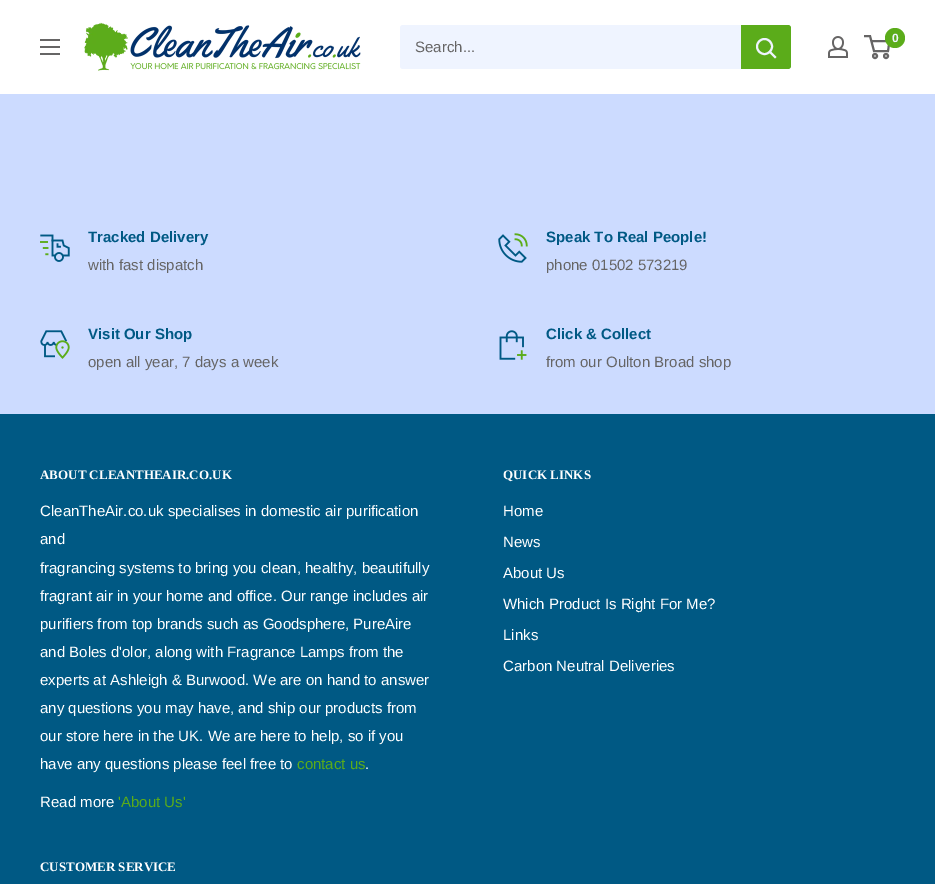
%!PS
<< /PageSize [935 884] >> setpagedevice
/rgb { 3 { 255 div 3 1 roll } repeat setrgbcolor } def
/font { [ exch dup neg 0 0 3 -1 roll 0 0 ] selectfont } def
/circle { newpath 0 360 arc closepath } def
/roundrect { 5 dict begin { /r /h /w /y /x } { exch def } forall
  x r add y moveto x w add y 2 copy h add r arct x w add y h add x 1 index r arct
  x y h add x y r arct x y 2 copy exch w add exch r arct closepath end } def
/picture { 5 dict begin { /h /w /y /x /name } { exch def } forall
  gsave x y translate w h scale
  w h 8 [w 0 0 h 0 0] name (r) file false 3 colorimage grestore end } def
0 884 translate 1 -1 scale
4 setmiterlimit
204 219 255 rgb
0 0 935 884 rectfill
255 255 255 rgb
0 0 935 94 rectfill
(img/1.rgb) 84 22 277 49 picture
(img/2.rgb) 828 36 20 22 picture
102 101 101 rgb
2 setlinewidth
875 56 2 circle stroke
886 56 2 circle stroke
871.5 41 moveto 889.5 41 lineto 888 51 lineto 874 51 lineto 870 36 lineto 864 36 lineto stroke
91 172 26 rgb
895 38 10 circle fill
(img/3.rgb) 40 39 20 16 picture
239 244 255 rgb
400 25 391 44 3 roundrect fill
91 172 26 rgb
741 25 moveto 788 25 lineto 789.5 25 791 26.5 791 28 curveto 791 66 lineto 791 67.5 789.5 69 788 69 curveto 741 69 lineto closepath fill
239 244 255 rgb
2 setlinecap
775 57 moveto 770 52 lineto stroke
0 setlinecap
764.5 46.5 7.5 circle stroke
(img/4.rgb) 40 234 30 28 picture
(img/5.rgb) 498 233 30 30 picture
(img/6.rgb) 40 330 30 29 picture
(img/7.rgb) 499 330 28 30 picture
0 89 132 rgb
0 414 935 470 rectfill
/LiberationSans-Bold 12 font
239 244 255 rgb
892 42 moveto (0) show
/LiberationSans-Regular 15 font
102 101 101 rgb
415 52 moveto (Search...) show
/LiberationSans-Bold 15 font
0 89 132 rgb
88 242 moveto (Tracked Delivery) show
/LiberationSans-Regular 15 font
102 101 101 rgb
88 270 moveto (with fast dispatch) show
/LiberationSans-Bold 15 font
0 89 132 rgb
546 242 moveto (Speak To Real People!) show
/LiberationSans-Regular 15 font
102 101 101 rgb
546 270 moveto (phone 01502 573219) show
/LiberationSans-Bold 15 font
0 89 132 rgb
88 339 moveto (Visit Our Shop) show
/LiberationSans-Regular 15 font
102 101 101 rgb
88 367 moveto (open all year, 7 days a week) show
/LiberationSans-Bold 15 font
0 89 132 rgb
546 339 moveto (Click & Collect) show
/LiberationSans-Regular 15 font
102 101 101 rgb
546 367 moveto (from our Oulton Broad shop) show
/LiberationSerif-Bold 13 font
255 255 255 rgb
40 479 moveto (ABOUT CLEANTHEAIR.CO.UK) show
/LiberationSans-Regular 15 font
[
  [(CleanTheAir.co.uk specialises in domestic air purification) 40 516]
  [(and) 40 544]
  [(fragrancing systems to bring you clean, healthy, beautifully) 40 573]
  [(fragrant air in your home and office. Our range includes air) 40 601]
  [(purifiers from top brands such as Goodsphere, PureAire) 40 629]
  [(and Boles d'olor, along with Fragrance Lamps from the) 40 657]
  [(experts at Ashleigh & Burwood. We are on hand to answer) 40 685]
  [(any questions you may have, and ship our products from) 40 713]
  [(our store here in the UK. We are here to help, so if you) 40 741]
  [(have any questions please feel free to) 40 769]
] { aload pop moveto show } forall
91 172 26 rgb
297 769 moveto (contact us) show
255 255 255 rgb
365 769 moveto (.) show
40 807 moveto (Read more) show
91 172 26 rgb
118 807 moveto ('About Us') show
/LiberationSerif-Bold 13 font
255 255 255 rgb
503 479 moveto (QUICK LINKS) show
/LiberationSans-Regular 15 font
[
  [(Home) 503 516]
  [(News) 503 547]
  [(About Us) 503 578]
  [(Which Product Is Right For Me?) 503 609]
  [(Links) 503 640]
  [(Carbon Neutral Deliveries) 503 671]
] { aload pop moveto show } forall
/LiberationSerif-Bold 13 font
40 871 moveto (CUSTOMER SERVICE) show
showpage
